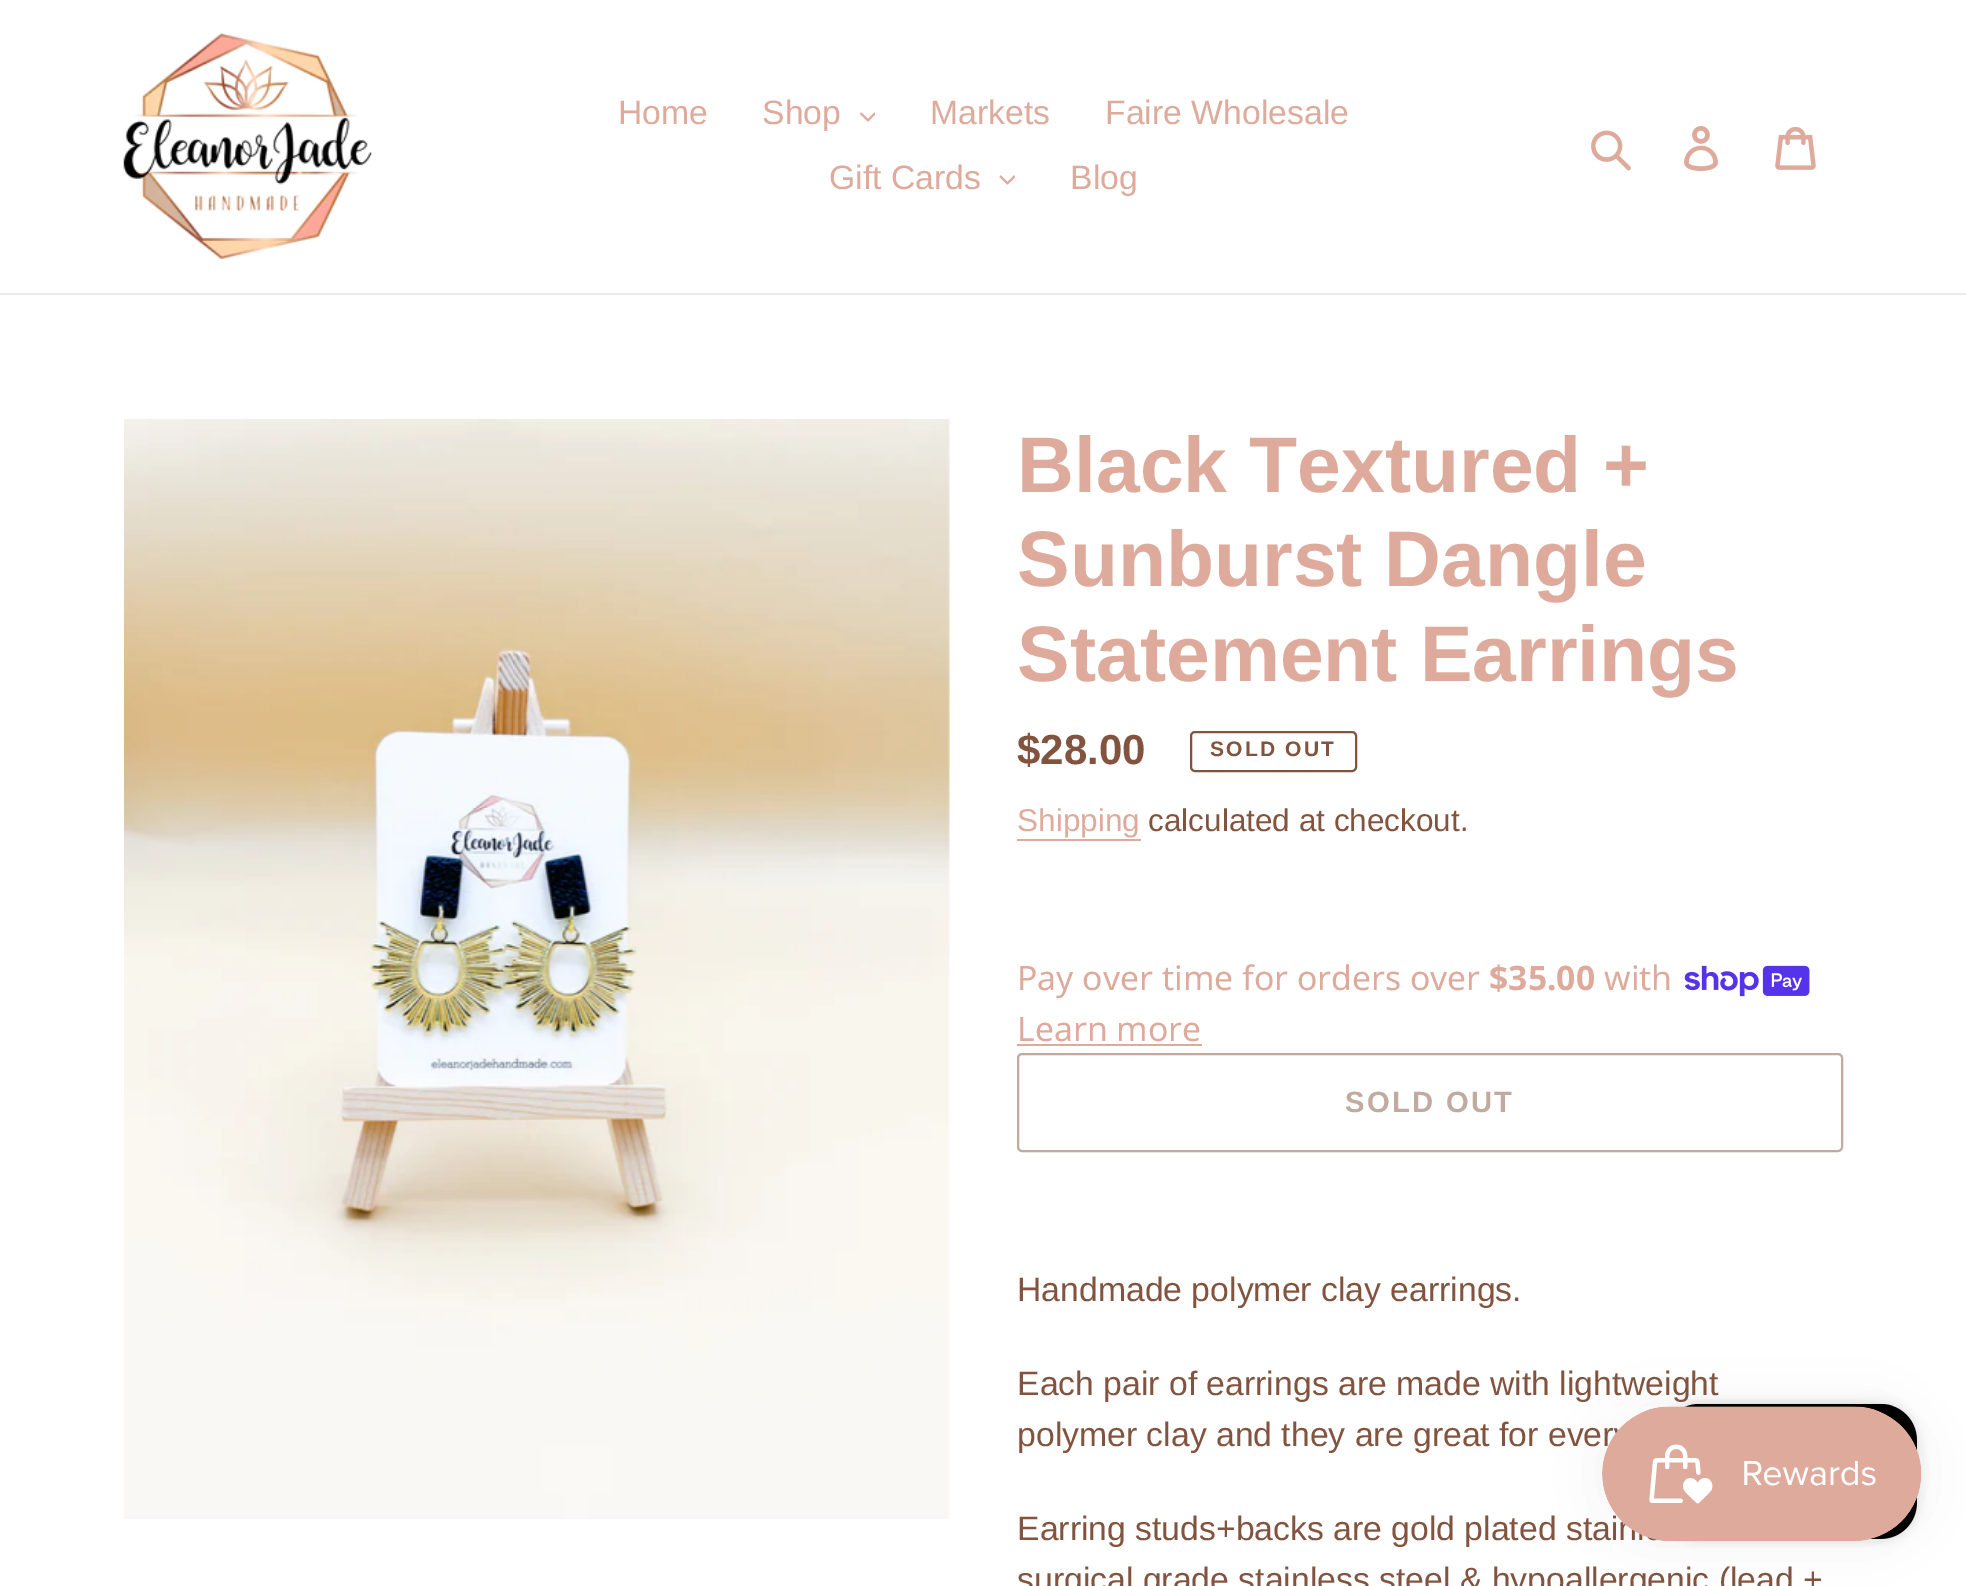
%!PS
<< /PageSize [1966 1586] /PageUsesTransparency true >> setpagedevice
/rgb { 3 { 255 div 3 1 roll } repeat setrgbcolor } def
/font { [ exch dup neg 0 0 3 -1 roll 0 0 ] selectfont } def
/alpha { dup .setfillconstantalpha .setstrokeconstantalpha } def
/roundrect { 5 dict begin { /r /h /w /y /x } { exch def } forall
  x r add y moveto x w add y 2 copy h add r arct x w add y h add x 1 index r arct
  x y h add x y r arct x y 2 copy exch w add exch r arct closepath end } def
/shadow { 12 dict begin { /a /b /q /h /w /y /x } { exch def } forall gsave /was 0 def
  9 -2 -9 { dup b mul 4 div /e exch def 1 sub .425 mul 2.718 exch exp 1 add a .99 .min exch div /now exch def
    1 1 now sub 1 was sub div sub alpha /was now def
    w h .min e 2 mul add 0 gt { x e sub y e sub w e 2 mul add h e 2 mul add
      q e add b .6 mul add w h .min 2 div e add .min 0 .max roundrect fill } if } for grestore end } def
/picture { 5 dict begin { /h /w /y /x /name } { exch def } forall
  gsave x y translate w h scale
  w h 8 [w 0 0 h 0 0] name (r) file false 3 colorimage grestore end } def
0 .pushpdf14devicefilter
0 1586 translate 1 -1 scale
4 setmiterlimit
255 255 255 rgb
0 0 1966 1586 rectfill
235 235 235 rgb
0 293 1966 2 rectfill
(img/1.rgb) 123 33 249 226 picture
(img/2.rgb) 860 112 15 10 picture
(img/3.rgb) 999 175 16 10 picture
(img/4.rgb) 1591 130 40 41 picture
(img/5.rgb) 1684 126 34 45 picture
(img/6.rgb) 1775 126 41 44 picture
(img/7.rgb) 124 419 826 1100 picture
130 84 63 rgb
2 setlinewidth
1191 732 165 39 4 roundrect stroke
222 170 155 rgb
1017 839 124 2 rectfill
(img/8.rgb) 1684 965 126 32 picture
1017 1044 185 2 rectfill
193 170 159 rgb
1018 1054 824 97 4 roundrect stroke
0 0 0 rgb
1663 1404 254 135 36 5.5 0.15 shadow
1663 1404 254 135 36 roundrect fill
1602 1406 320 135 67.5 28 0.05 shadow
/LiberationSans-Regular 33.75 font
222 170 155 rgb
[
  [(Home) 618 124]
  [(Shop) 762 124]
  [(Markets) 930 124]
  [(Faire Wholesale) 1105 124]
  [(Gift Cards) 829 189]
  [(Blog) 1070 189]
] { aload pop moveto show } forall
/LiberationSans-Bold 78.75 font
[
  [(Black Textured +) 1017 492]
  [(Sunburst Dangle) 1017 586]
  [(Statement Earrings) 1017 681]
] { aload pop moveto show } forall
/LiberationSans-Bold 42 font
130 84 63 rgb
1017 764 moveto ($28.00) show
/LiberationSans-Bold 21 font
1210 756 moveto 2.25 0 (SOLD OUT) ashow
/LiberationSans-Regular 31.5 font
222 170 155 rgb
1017 831 moveto (Shipping) show
130 84 63 rgb
1148 831 moveto (calculated at checkout.) show
/NotoSans-Regular 33.75 font
222 170 155 rgb
1017 990 moveto (Pay over time for orders over) show
/NotoSans-Bold 33.75 font
1489 990 moveto ($35.00) show
/NotoSans-Regular 33.75 font
1604 990 moveto (with) show
1017 1041 moveto (Learn more) show
/LiberationSans-Bold 29.25 font
193 170 159 rgb
1345 1112 moveto 2.25 0 (SOLD OUT) ashow
/LiberationSans-Regular 33.75 font
130 84 63 rgb
[
  [(Handmade polymer clay earrings.) 1017 1301]
  [(Each pair of earrings are made with lightweight) 1017 1395]
  [(polymer clay and they are great for ever) 1017 1446]
  [(Earring studs+backs are gold plated stai) 1017 1540]
  [(surgical grade stainless steel & hypoallergenic \(lead +) 1017 1591]
] { aload pop moveto show } forall
(img/9.rgb) 1602 1406 320 135 picture
.poppdf14devicefilter showpage
